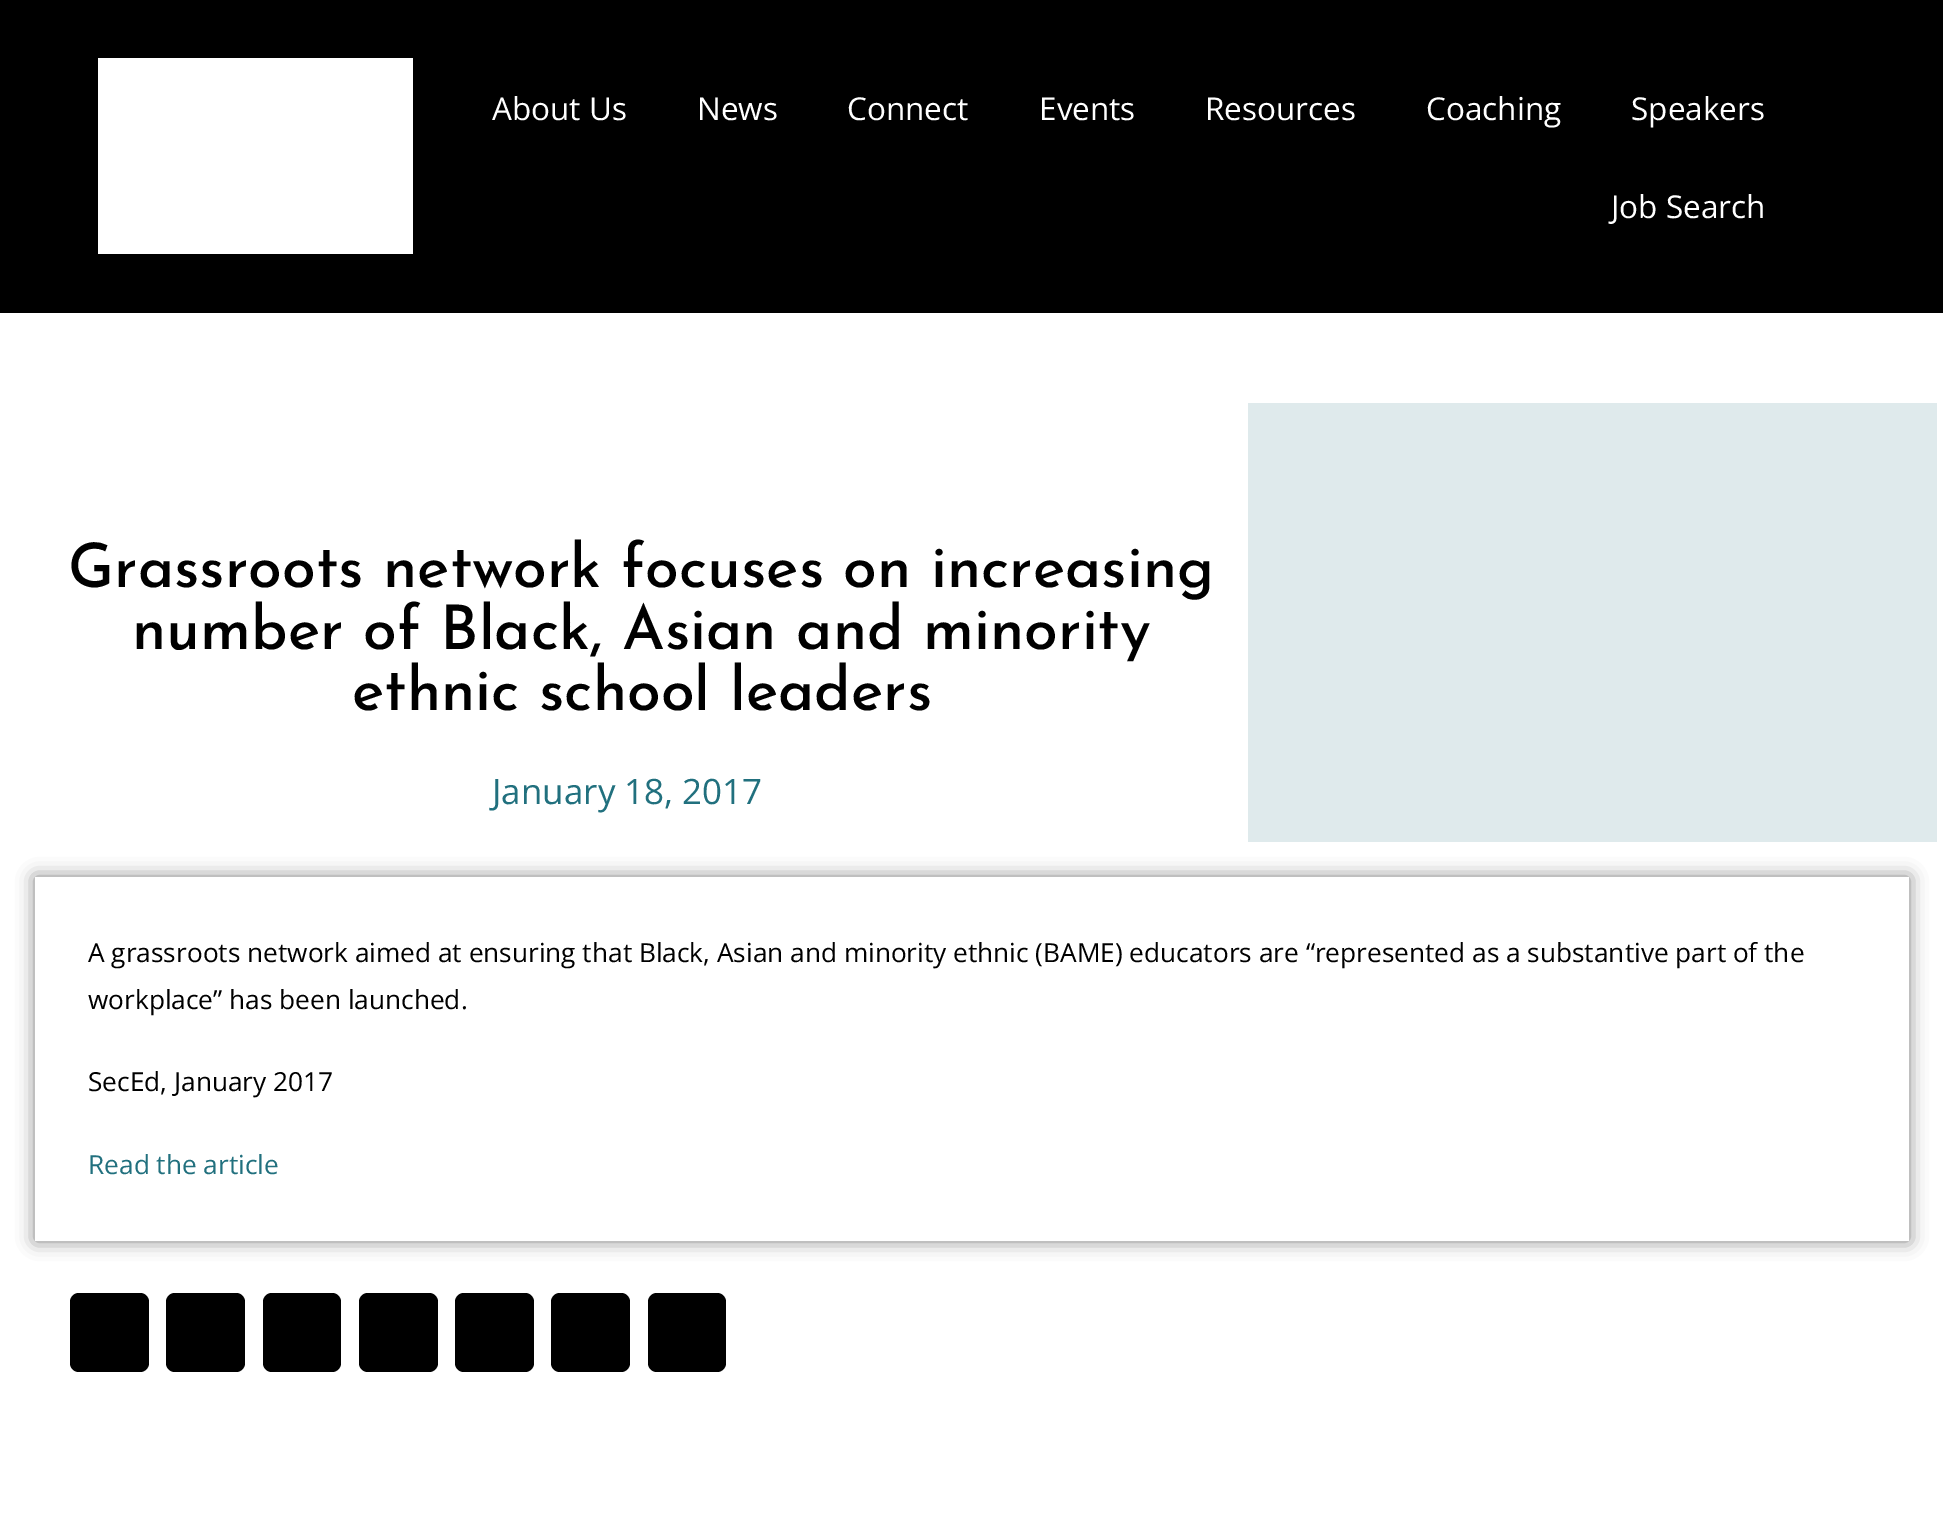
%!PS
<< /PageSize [1943 1540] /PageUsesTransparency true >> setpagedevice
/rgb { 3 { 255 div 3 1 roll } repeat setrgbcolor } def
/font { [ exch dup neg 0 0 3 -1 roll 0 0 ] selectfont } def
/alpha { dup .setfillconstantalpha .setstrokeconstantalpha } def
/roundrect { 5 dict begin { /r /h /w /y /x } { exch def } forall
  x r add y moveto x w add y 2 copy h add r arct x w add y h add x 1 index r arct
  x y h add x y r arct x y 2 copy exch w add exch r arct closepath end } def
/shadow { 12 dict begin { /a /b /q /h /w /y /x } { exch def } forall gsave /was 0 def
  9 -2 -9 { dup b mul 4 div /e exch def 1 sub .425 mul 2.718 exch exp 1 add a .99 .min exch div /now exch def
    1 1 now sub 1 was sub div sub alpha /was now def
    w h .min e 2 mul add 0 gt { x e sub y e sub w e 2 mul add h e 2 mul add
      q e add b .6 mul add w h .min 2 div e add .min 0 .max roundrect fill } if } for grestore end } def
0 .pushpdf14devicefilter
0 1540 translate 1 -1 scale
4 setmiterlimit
255 255 255 rgb
0 0 1943 1540 rectfill
[
  [0 0 1943 313 0 0 0]
  [98 58 315 196 255 255 255]
  [1248 403 689 439 223 234 236]
] { aload pop rgb rectfill } forall
gsave
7 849 moveto 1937 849 lineto 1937 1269 lineto 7 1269 lineto closepath 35 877 moveto 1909 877 lineto 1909 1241 lineto 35 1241 lineto closepath eoclip newpath
0 0 0 rgb
35 877 1874 364 0 9 0.5 shadow
grestore
0 0 0 rgb
70 1293 79 79 9 roundrect fill
166 1293 79 79 9 roundrect fill
263 1293 78 79 9 roundrect fill
359 1293 79 79 9 roundrect fill
455 1293 79 79 9 roundrect fill
551 1293 79 79 9 roundrect fill
648 1293 78 79 9 roundrect fill
/OpenSans-Regular 31.5 font
255 255 255 rgb
[
  [(About Us) 492 120]
  [(News) 697 120]
  [(Connect) 847 120]
  [(Events) 1039 120]
  [(Resources) 1205 120]
  [(Coaching) 1426 120]
  [(Speakers) 1631 120]
  [(Job Search) 1611 218]
] { aload pop moveto show } forall
/JosefinSans-Medium 61.25 font
0 0 0 rgb
[
  [(Grassroots network focuses on increasing) 68 587]
  [(number of Black, Asian and minority) 132 649]
  [(ethnic school leaders) 352 710]
] { aload pop moveto show } forall
/OpenSans-Regular 35 font
33 112 126 rgb
492 804 moveto (January 18, 2017) show
/OpenSans-Regular 26.25 font
0 0 0 rgb
[
  [(A grassroots network aimed at ensuring that Black, Asian and minority ethnic \(BAME\) educators are “represented as a substantive part of the) 88 962]
  [(workplace” has been launched.) 88 1009]
  [(SecEd, January 2017) 88 1091]
] { aload pop moveto show } forall
33 112 126 rgb
88 1174 moveto (Read the article) show
.poppdf14devicefilter showpage
